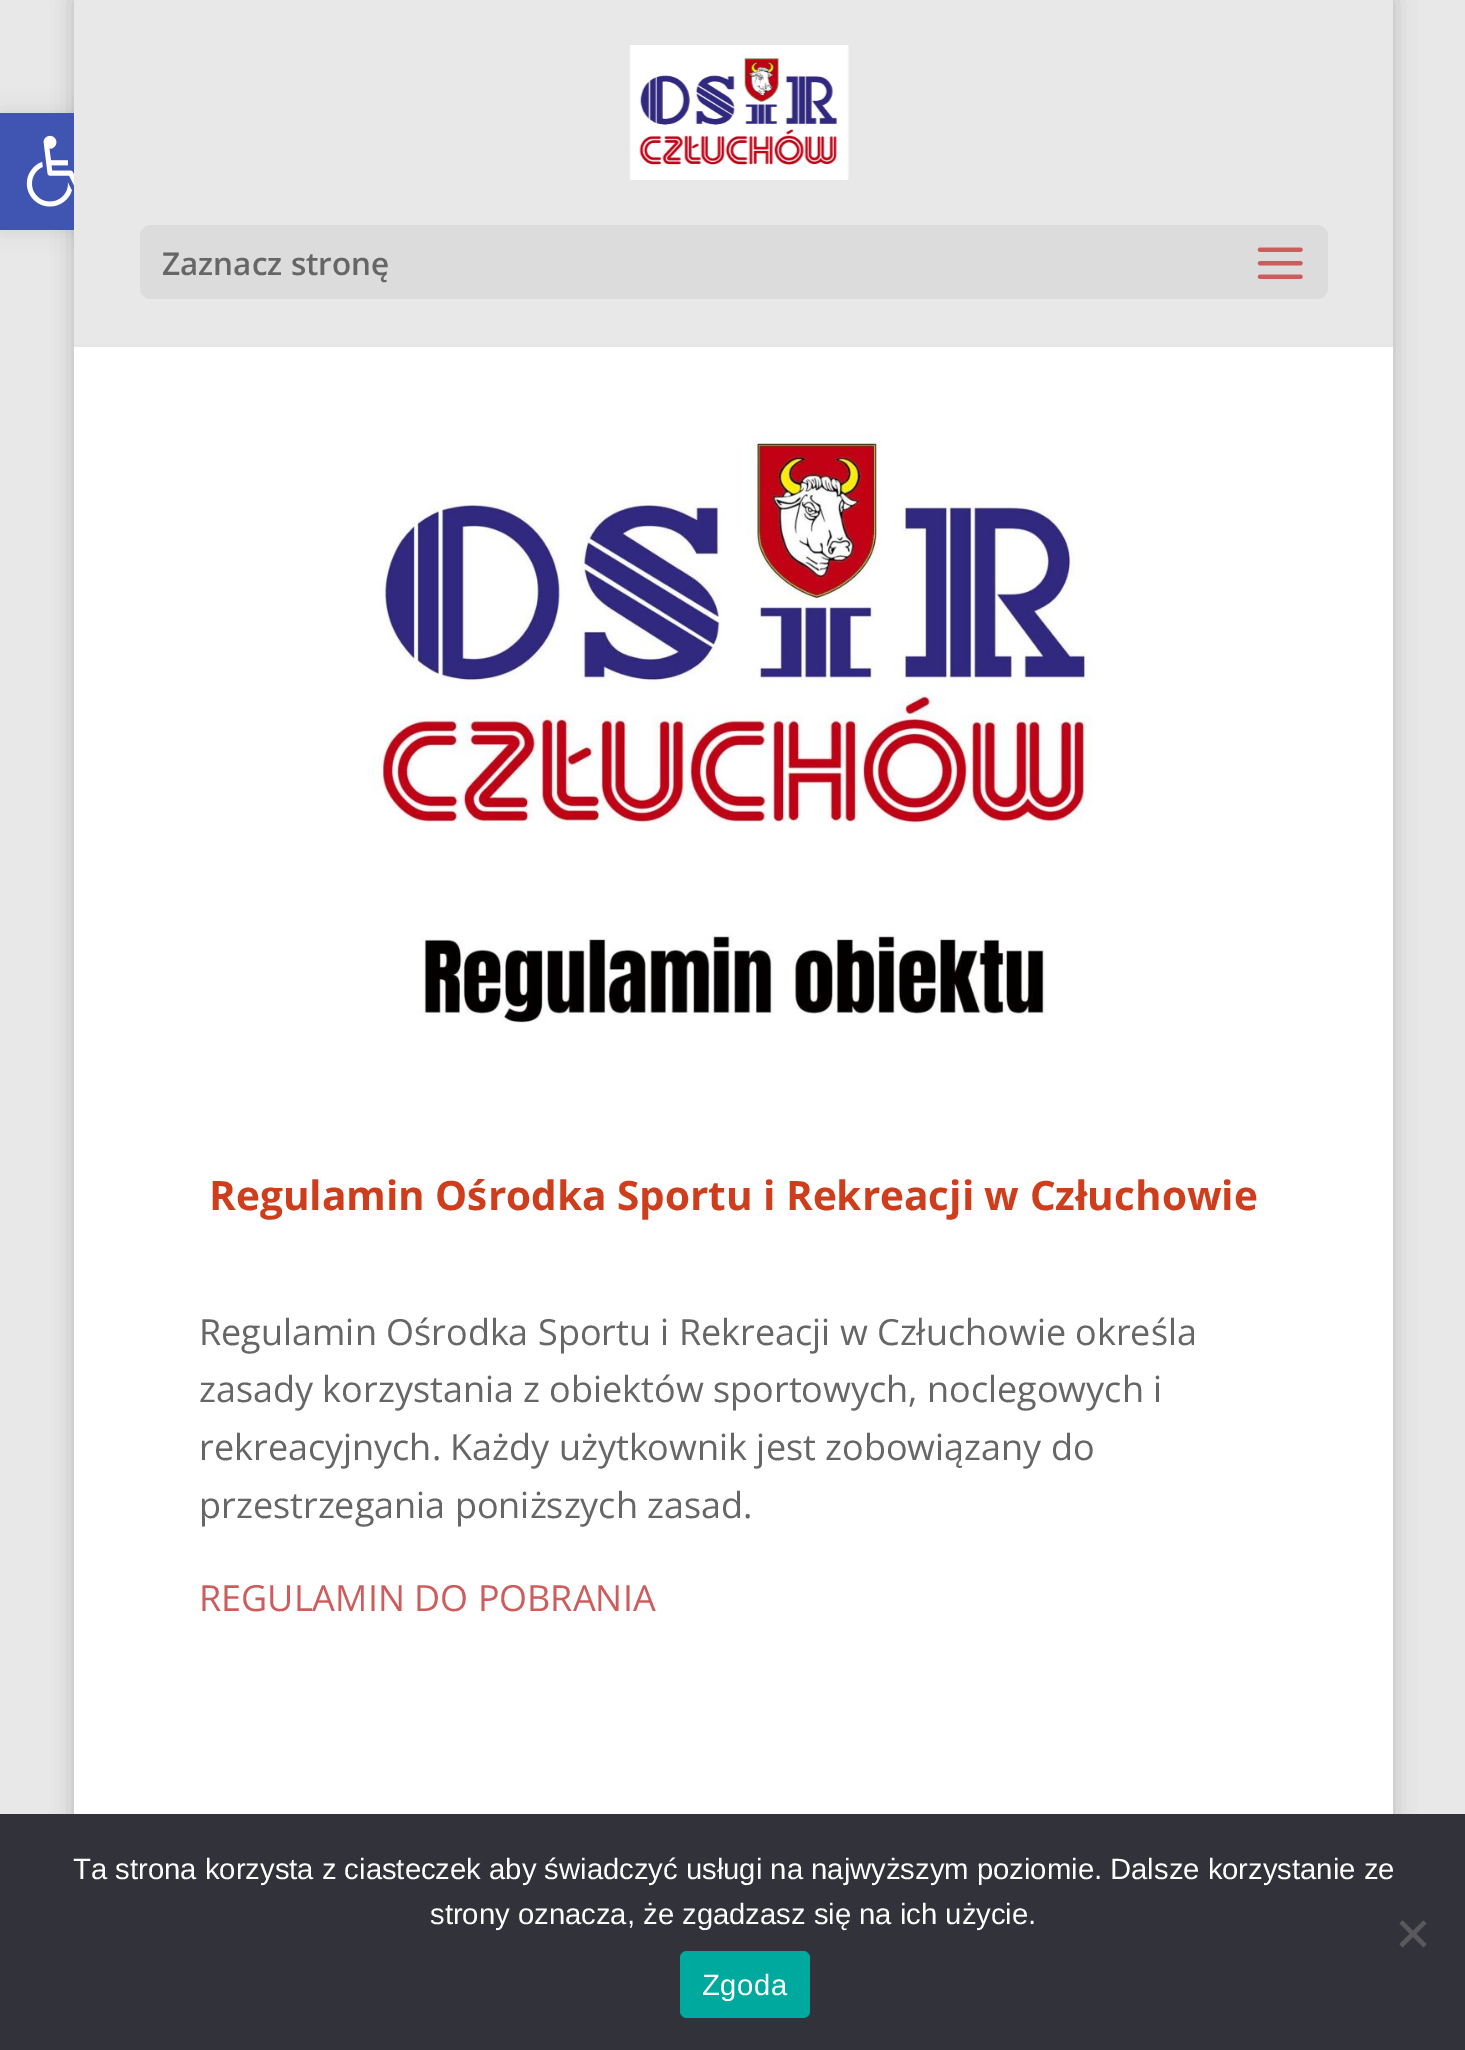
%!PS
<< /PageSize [1465 2050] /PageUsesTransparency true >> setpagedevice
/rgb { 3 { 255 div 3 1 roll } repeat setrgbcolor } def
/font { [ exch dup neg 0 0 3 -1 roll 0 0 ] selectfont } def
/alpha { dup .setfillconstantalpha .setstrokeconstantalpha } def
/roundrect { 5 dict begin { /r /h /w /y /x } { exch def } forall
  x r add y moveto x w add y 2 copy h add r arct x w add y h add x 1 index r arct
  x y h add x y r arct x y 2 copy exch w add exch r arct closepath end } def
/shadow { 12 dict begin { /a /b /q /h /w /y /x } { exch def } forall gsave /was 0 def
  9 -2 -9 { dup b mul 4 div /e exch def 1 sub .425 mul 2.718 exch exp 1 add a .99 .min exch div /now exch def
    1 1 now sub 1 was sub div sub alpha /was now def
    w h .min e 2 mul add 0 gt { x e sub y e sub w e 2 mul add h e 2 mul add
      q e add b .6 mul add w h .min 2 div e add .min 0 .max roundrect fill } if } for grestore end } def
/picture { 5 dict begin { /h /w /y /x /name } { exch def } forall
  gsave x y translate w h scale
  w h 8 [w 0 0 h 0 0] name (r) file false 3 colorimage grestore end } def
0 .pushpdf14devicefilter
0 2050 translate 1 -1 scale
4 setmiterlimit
232 232 232 rgb
0 0 1465 2050 rectfill
0 0 0 rgb
0 113 117 117 0 11 0.1 shadow
74 0 1319 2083 0 11 0.2 shadow
64 84 178 rgb
0 113 74 117 rectfill
(img/1.rgb) 26 135 48 72 picture
230 230 230 rgb
74 2 moveto 74 347 lineto 1393 347 lineto 1393 2 lineto 1393 344 lineto 74 344 lineto closepath fill
232 232 232 rgb
74 0 1319 344 rectfill
(img/2.rgb) 629 45 220 135 picture
220 220 220 rgb
140 225 1188 74 11 roundrect fill
(img/3.rgb) 1257 247 46 32 picture
255 255 255 rgb
74 347 1319 1467 rectfill
(img/4.rgb) 372 434 723 589 picture
50 50 58 rgb
0 1814 1465 236 rectfill
89 89 93 rgb
1423.5 1920.5 moveto 1426.5 1923.5 lineto 1402.5 1947.5 lineto 1399.5 1944 lineto closepath fill
1399.5 1923.5 moveto 1402.5 1920.5 lineto 1426.5 1944 lineto 1423.5 1947.5 lineto closepath fill
0 169 157 rgb
680 1951 130 67 7 roundrect fill
/OpenSans-SemiBold 31.5 font
102 102 102 rgb
162 275 moveto (Zaznacz stronę) show
/OpenSans-Bold 40.5 font
206 61 28 rgb
209 1210 moveto (Regulamin Ośrodka Sportu i Rekreacji w Człuchowie) show
/OpenSans-Regular 36 font
102 102 102 rgb
[
  [(Regulamin Ośrodka Sportu i Rekreacji w Człuchowie określa) 199 1345]
  [(zasady korzystania z obiektów sportowych, noclegowych i) 199 1402]
  [(rekreacyjnych. Każdy użytkownik jest zobowiązany do) 199 1460]
  [(przestrzegania poniższych zasad.) 199 1518]
] { aload pop moveto show } forall
205 92 92 rgb
199 1611 moveto (REGULAMIN DO POBRANIA) show
/LiberationSans-Regular 29.25 font
255 255 255 rgb
73 1879 moveto (Ta strona korzysta z ciasteczek aby świadczyć usługi na najwyższym poziomie. Dalsze korzystanie ze) show
430 1924 moveto (strony oznacza, że zgadzasz się na ich użycie.) show
702 1995 moveto 0.5 0 (Zgoda) ashow
.poppdf14devicefilter showpage
